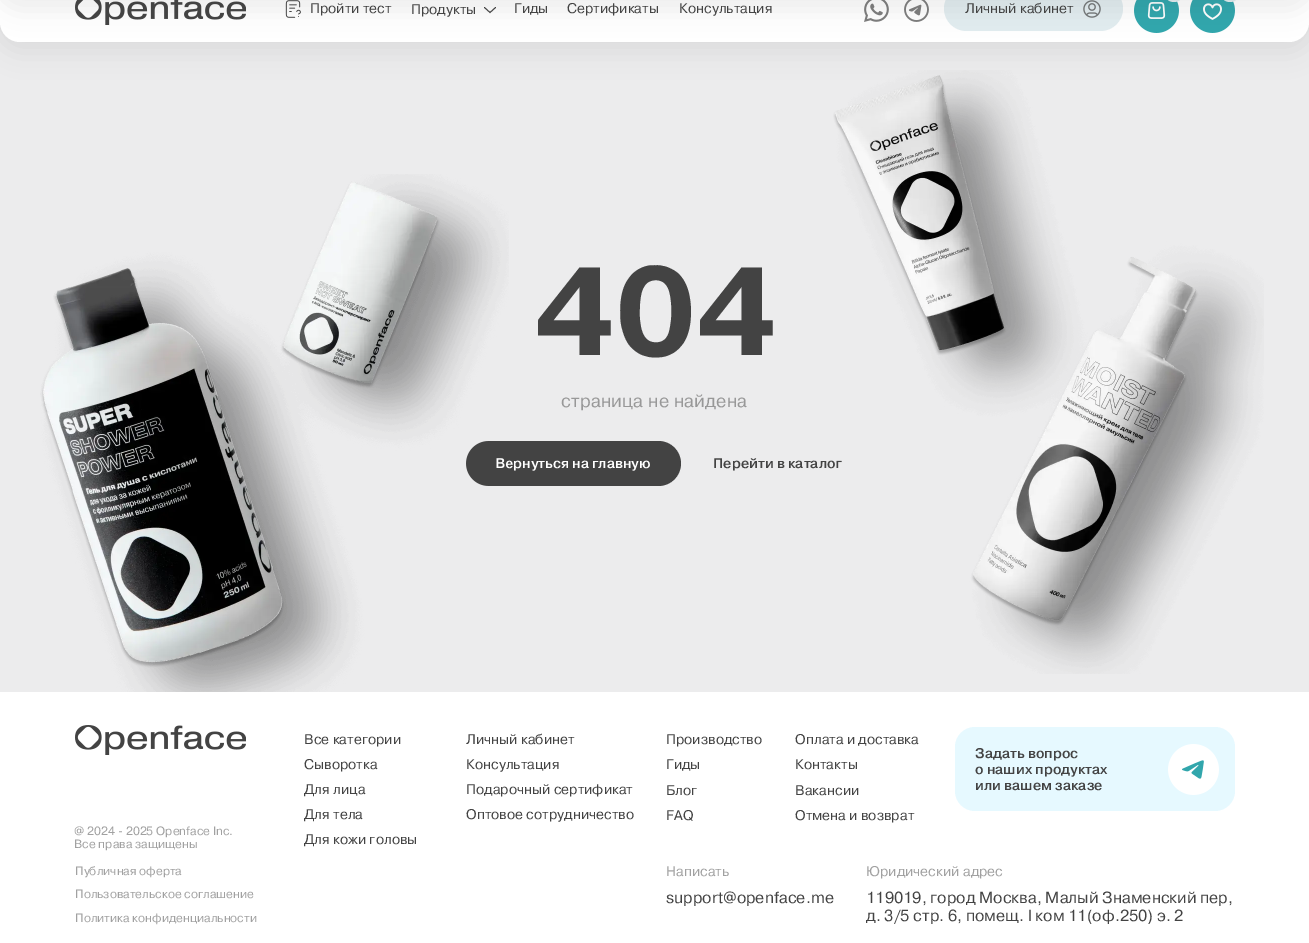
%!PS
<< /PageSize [1309 943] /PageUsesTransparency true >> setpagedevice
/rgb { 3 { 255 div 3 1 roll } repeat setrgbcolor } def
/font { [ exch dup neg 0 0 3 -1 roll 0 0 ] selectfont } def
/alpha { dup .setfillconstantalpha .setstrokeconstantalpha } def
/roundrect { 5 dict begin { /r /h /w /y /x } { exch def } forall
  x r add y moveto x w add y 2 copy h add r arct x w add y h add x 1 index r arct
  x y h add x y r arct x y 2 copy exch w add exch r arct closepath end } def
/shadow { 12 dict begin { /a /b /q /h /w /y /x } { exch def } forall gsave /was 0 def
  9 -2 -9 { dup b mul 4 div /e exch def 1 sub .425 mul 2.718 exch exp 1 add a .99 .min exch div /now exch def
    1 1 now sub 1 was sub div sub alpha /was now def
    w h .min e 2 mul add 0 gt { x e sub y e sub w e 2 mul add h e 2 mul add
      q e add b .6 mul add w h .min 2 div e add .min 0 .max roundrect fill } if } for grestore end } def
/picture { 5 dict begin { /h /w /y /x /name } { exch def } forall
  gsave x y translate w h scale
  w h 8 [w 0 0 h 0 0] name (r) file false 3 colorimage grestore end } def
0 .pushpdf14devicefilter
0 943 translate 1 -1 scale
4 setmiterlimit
255 255 255 rgb
0 0 1309 943 rectfill
236 236 237 rgb
0 22 1309 670 rectfill
67 67 67 rgb
466 441 215 45 22.5 roundrect fill
(img/10.rgb) 75 725 171 30 picture
230 249 255 rgb
955 727 280 84 20 roundrect fill
(img/11.rgb) 1168 744 51 51 picture
/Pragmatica-Bold 125 font
67 67 67 rgb
534 355 moveto -0.5 0 (404) ashow
/Pragmatica-Regular 18 font
152 152 152 rgb
561 407 moveto 0.25 0 (страница не найдена) ashow
/Pragmatica-Medium 14 font
255 255 255 rgb
495 468 moveto (Вернуться на главную) show
(img/8.rgb) 40 174 469 518 picture
67 67 67 rgb
713 468 moveto (Перейти в каталог) show
(img/9.rgb) 833 70 431 604 picture
-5 -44 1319 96 25 12.5 0.1 shadow
255 255 255 rgb
0 -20 1309 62 20 roundrect fill
67 67 67 rgb
0.9 setlinewidth
1 setlinecap
495.5 7.5 moveto 490 12.5 lineto 484.5 7.5 lineto stroke
(img/7.rgb) 1190 0 45 33 picture
226 237 240 rgb
1220 -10 20 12 10 roundrect fill
(img/6.rgb) 1134 0 45 33 picture
1164 -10 20 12 10 roundrect fill
944 -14 179 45 22.5 roundrect fill
(img/5.rgb) 1083 0 18 18 picture
(img/3.rgb) 864 0 25 22 picture
(img/4.rgb) 904 0 25 22 picture
(img/2.rgb) 285 0 16 18 picture
(img/1.rgb) 75 0 171 25 picture
67 67 67 rgb
-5 -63 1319 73 25 12.5 0.1 shadow
/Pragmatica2-Regular 14 font
[
  [(Личный кабинет) 965 13]
  [(Консультация) 679 13]
  [(Сертификаты) 567 13]
  [(Гиды) 514 13]
  [(Продукты) 411 14]
  [(Пройти тест) 310 13]
  [(Все категории) 304 744]
  [(Личный кабинет) 466 744]
  [(Производство) 666 744]
  [(Гиды) 666 769]
  [(Блог) 666 795]
  [(FAQ) 666 820]
  [(Оплата и доставка) 795 744]
  [(Контакты) 795 769]
  [(Вакансии) 795 795]
  [(Отмена и возврат) 795 820]
  [(Сыворотка) 304 769]
  [(Консультация) 466 769]
] { aload pop moveto show } forall
/Pragmatica-Medium 14 font
[
  [(Задать вопрос) 975 758]
  [(о наших продуктах) 975 774]
  [(или вашем заказе) 975 790]
] { aload pop moveto show } forall
/Pragmatica2-Regular 14 font
[
  [(Для лица) 304 794]
  [(Подарочный сертификат) 466 794]
  [(Для тела) 304 819]
  [(Оптовое сотрудничество) 466 819]
] { aload pop moveto show } forall
/Pragmatica2-Regular 12 font
161 161 161 rgb
74 835 moveto (@ 2024 - 2025 Openface Inc.) show
74 848 moveto (Все права защищены) show
/Pragmatica2-Regular 14 font
67 67 67 rgb
304 844 moveto (Для кожи головы) show
/Pragmatica2-Regular 12 font
161 161 161 rgb
75 875 moveto (Публичная оферта) show
/Pragmatica2-Regular 14 font
666 876 moveto (Написать) show
866 876 moveto (Юридический адрес) show
/Pragmatica2-Regular 12 font
75 898 moveto (Пользовательское соглашение) show
/Pragmatica2-Regular 16 font
67 67 67 rgb
[
  [(support@openface.me) 666 903]
  [(119019, город Москва, Малый Знаменский пер,) 866 903]
  [(д. 3/5 стр. 6, помещ. I ком 11\(оф.250\) э. 2) 866 921]
] { aload pop moveto show } forall
/Pragmatica2-Regular 12 font
161 161 161 rgb
75 922 moveto (Политика конфиденциальности) show
.poppdf14devicefilter showpage
